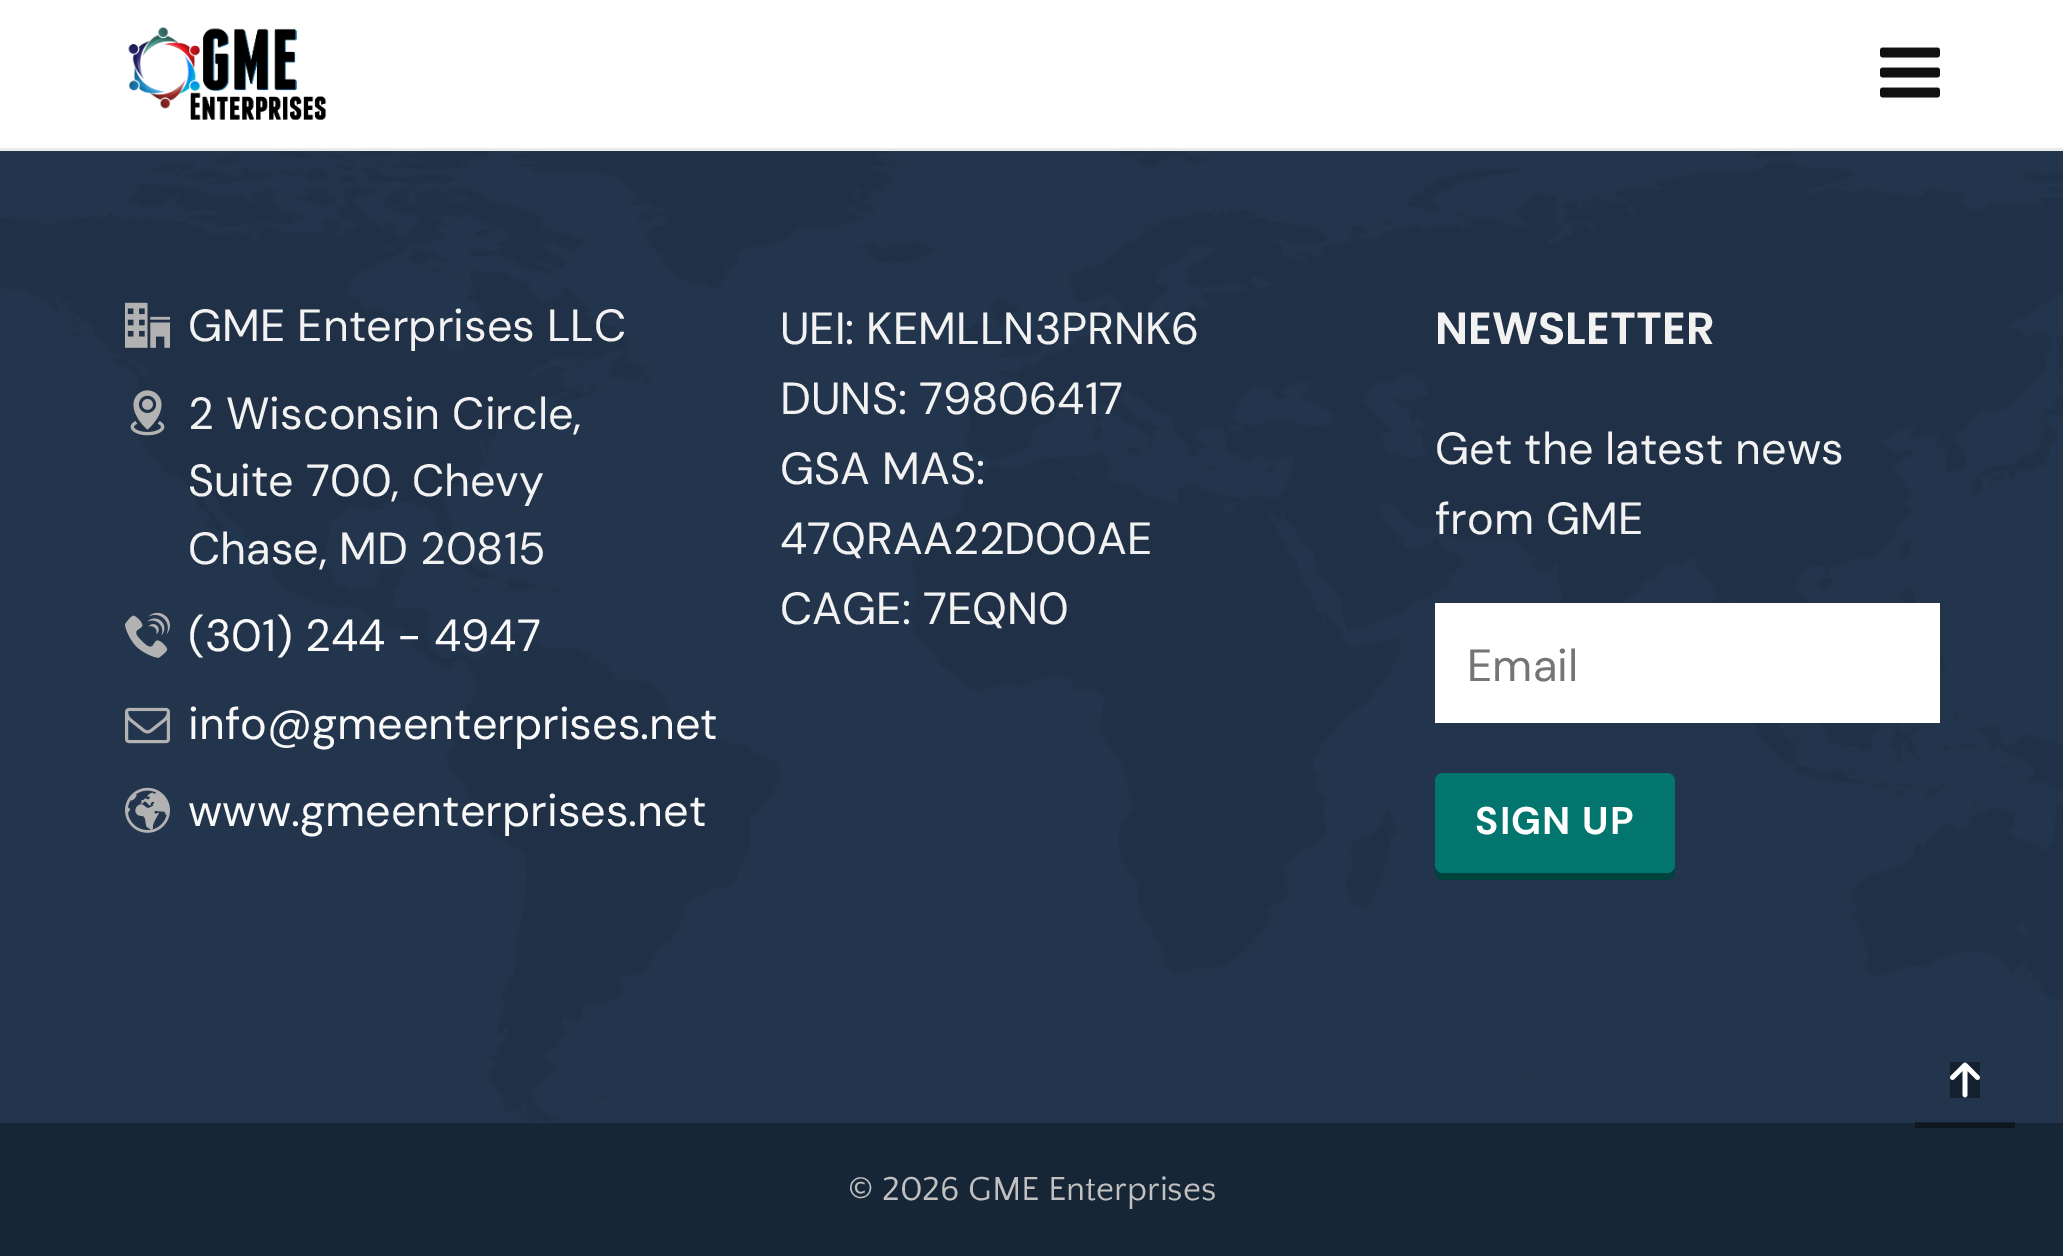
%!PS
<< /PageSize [2063 1256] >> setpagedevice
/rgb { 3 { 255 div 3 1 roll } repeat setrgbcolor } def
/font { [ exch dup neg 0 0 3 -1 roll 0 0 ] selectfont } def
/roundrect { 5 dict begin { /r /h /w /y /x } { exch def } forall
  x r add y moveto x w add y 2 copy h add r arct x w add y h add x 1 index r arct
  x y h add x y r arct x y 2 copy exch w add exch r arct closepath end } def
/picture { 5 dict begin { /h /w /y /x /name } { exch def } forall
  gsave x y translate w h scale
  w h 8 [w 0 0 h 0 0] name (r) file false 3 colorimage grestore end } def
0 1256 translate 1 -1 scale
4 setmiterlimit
34 53 76 rgb
0 0 2063 1256 rectfill
255 255 255 rgb
0 0 2063 148 rectfill
235 235 235 rgb
0 148 2063 3 rectfill
(img/1.rgb) 128 27 199 94 picture
(img/2.rgb) 1880 47 60 51 picture
20 32 46 rgb
1915 1028 100 95 rectfill
(img/3.rgb) 0 151 2063 971 picture
(img/4.rgb) 125 302 45 46 picture
(img/5.rgb) 130 390 35 46 picture
(img/6.rgb) 125 612 45 46 picture
(img/7.rgb) 125 707 45 37 picture
(img/8.rgb) 125 787 45 46 picture
255 255 255 rgb
1435 603 505 120 rectfill
0 67 61 rgb
1435 865 moveto 1435 872 lineto 1435 876 1439 880 1443 880 curveto 1667 880 lineto 1671 880 1675 876 1675 872 curveto 1675 865 lineto 1675 869 1672 872 1668 872 curveto 1442 872 lineto 1438 872 1435 869 1435 865 curveto closepath fill
2 117 111 rgb
1435 773 240 100 8 roundrect fill
(img/9.rgb) 1950 1062 30 36 picture
23 38 54 rgb
0 1123 2063 133 rectfill
14 23 32 rgb
1915 1123 100 5 rectfill
/DMSans-Regular 45 font
242 242 242 rgb
[
  [(GME Enterprises LLC) 188 341]
  [(2 Wisconsin Circle,) 188 429]
  [(Suite 700, Chevy) 188 496]
  [(Chase, MD 20815) 188 564]
] { aload pop moveto show } forall
249 249 249 rgb
[
  [(\(301\) 244 - 4947) 188 651]
  [(info@gmeenterprises.net) 188 739]
  [(www.gmeenterprises.net) 188 826]
] { aload pop moveto show } forall
242 242 242 rgb
[
  [(UEI: KEMLLN3PRNK6) 780 344]
  [(DUNS: 79806417) 780 414]
  [(GSA MAS:) 780 484]
  [(47QRAA22D00AE) 780 554]
  [(CAGE: 7EQN0) 780 624]
] { aload pop moveto show } forall
/Poppins-SemiBold 45 font
1435 344 moveto (NEWSLETTER) show
/DMSans-Regular 45 font
1435 464 moveto (Get the latest news) show
1435 534 moveto (from GME) show
117 117 117 rgb
1467 681 moveto (Email) show
/DMSans-Bold 38.5 font
255 255 255 rgb
1475 834 moveto 1.25 0 (SIGN UP) ashow
/QuattrocentoSans-Regular 35 font
193 193 193 rgb
848 1200 moveto (© 2026 GME Enterprises) show
showpage
